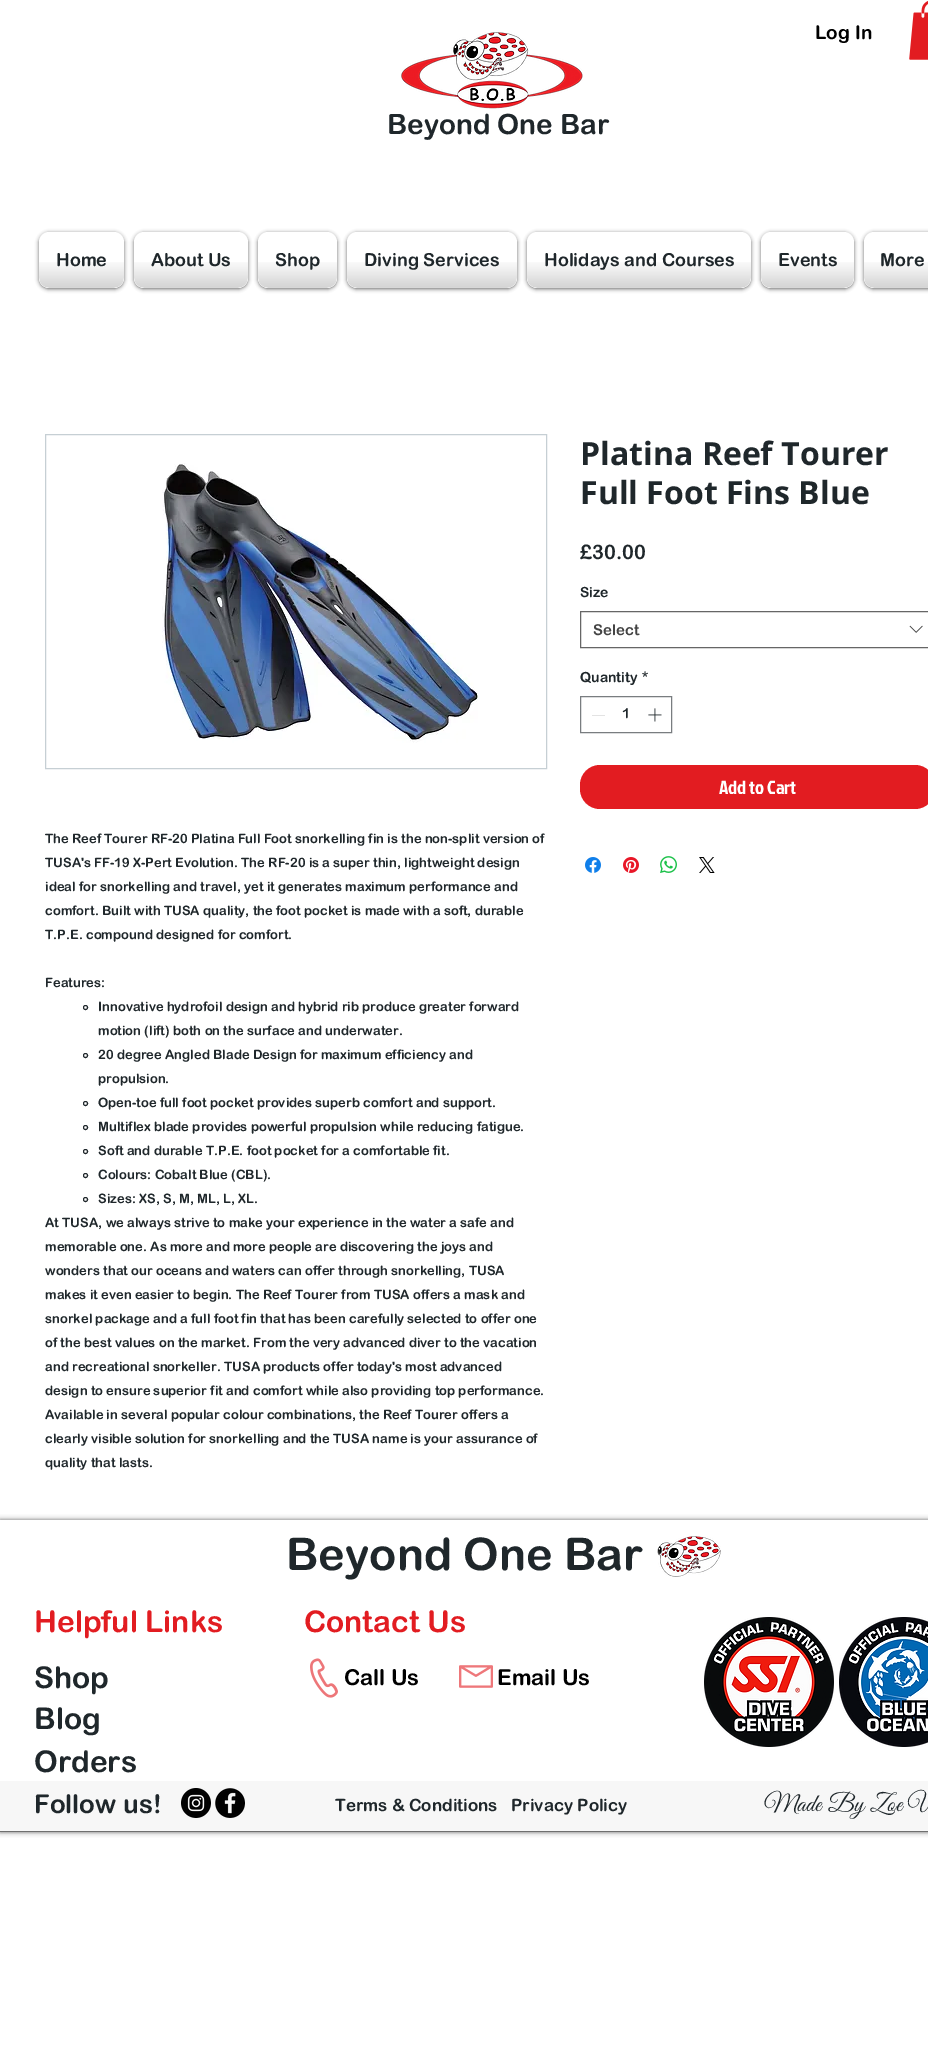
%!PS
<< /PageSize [928 2045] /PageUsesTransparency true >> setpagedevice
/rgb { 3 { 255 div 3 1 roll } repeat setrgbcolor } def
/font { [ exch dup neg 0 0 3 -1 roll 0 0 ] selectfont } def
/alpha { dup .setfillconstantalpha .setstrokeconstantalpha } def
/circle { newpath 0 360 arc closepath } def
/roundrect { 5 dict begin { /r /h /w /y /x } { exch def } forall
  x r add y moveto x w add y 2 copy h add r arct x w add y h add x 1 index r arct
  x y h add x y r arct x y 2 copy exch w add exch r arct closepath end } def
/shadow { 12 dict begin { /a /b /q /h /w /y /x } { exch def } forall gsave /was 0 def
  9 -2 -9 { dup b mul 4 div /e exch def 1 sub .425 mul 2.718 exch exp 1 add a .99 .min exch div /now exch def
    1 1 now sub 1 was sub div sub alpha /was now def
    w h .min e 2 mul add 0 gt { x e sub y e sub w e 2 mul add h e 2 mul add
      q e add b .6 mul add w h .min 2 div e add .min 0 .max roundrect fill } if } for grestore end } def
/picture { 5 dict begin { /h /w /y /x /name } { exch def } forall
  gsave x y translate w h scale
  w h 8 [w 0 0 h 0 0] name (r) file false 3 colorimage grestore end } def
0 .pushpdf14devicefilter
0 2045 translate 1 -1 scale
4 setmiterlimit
255 255 255 rgb
0 0 928 2045 rectfill
247 247 247 rgb
0 1781 928 50 rectfill
(img/1.rgb) 909 1 19 59 picture
(img/2.rgb) 401 32 182 77 picture
0 0 0 rgb
39 233 85 56 10 2 0.6 shadow
255 255 255 rgb
39 232 85 56 10 roundrect fill
(img/3.rgb) 39 262 85 26 picture
0 0 0 rgb
134 233 114 56 10 2 0.6 shadow
255 255 255 rgb
134 232 114 56 10 roundrect fill
(img/4.rgb) 134 262 114 26 picture
0 0 0 rgb
258 233 79 56 10 2 0.6 shadow
255 255 255 rgb
258 232 79 56 10 roundrect fill
(img/5.rgb) 258 262 79 26 picture
0 0 0 rgb
347 233 170 56 10 2 0.6 shadow
255 255 255 rgb
347 232 170 56 10 roundrect fill
(img/6.rgb) 347 262 170 26 picture
0 0 0 rgb
527 233 224 56 10 2 0.6 shadow
255 255 255 rgb
527 232 224 56 10 roundrect fill
(img/7.rgb) 527 262 224 26 picture
0 0 0 rgb
761 233 93 56 10 2 0.6 shadow
255 255 255 rgb
761 232 93 56 10 roundrect fill
(img/8.rgb) 761 262 93 26 picture
0 0 0 rgb
864 233 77 56 10 2 0.6 shadow
255 255 255 rgb
864 232 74 56 10 roundrect fill
(img/9.rgb) 864 262 64 26 picture
102 102 102 rgb
580.5 611.5 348 36 rectstroke
(img/10.rgb) 909 625 14 8 picture
121 125 128 rgb
580.5 696.5 91 36 rectstroke
227 227 227 rgb
592 715 13 1 rectfill
(img/11.rgb) 648 708 14 14 picture
226 28 33 rgb
580 765 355 44 20 roundrect fill
(img/12.rgb) 585 857 16 16 picture
(img/13.rgb) 623 857 16 16 picture
(img/14.rgb) 660 856 17 17 picture
(img/15.rgb) 699 857 16 16 picture
198 207 212 rgb
45.5 434.5 501 334 rectstroke
(img/16.rgb) 162 463 316 280 picture
31 39 43 rgb
85.5 1007.5 2 circle stroke
85.5 1055.5 2 circle stroke
85.5 1103.5 2 circle stroke
85.5 1127.5 2 circle stroke
85.5 1151.5 2 circle stroke
85.5 1175.5 2 circle stroke
85.5 1199.5 2 circle stroke
gsave
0 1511 moveto 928 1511 lineto 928 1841 lineto 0 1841 lineto closepath 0 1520 moveto 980 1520 lineto 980 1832 lineto 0 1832 lineto closepath eoclip newpath
0 0 0 rgb
0 1520 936 312 0 2.5 0.6 shadow
grestore
111 111 111 rgb
0 1831 928 1 rectfill
(img/17.rgb) 657 1536 64 41 picture
(img/18.rgb) 704 1617 130 130 picture
(img/19.rgb) 839 1617 89 130 picture
(img/20.rgb) 310 1658 28 40 picture
(img/21.rgb) 459 1665 34 23 picture
(img/22.rgb) 181 1788 30 30 picture
(img/23.rgb) 215 1788 30 30 picture
/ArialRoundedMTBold-Bold 19 font
0 0 0 rgb
815 39 moveto (Log In) show
/ArialRoundedMTBold-Bold 28 font
31 39 43 rgb
387 134 moveto (Beyond One Bar) show
/ArialRoundedMTBold-Bold 18 font
[
  [(Home) 56 266]
  [(About Us) 151 266]
  [(Shop) 275 266]
  [(Diving Services) 364 266]
  [(Holidays and Courses) 544 266]
  [(Events) 778 266]
  [(More) 880 266]
] { aload pop moveto show } forall
/OpenSans-Bold 32 font
580 465 moveto (Platina Reef Tourer) show
580 504 moveto (Full Foot Fins Blue) show
/ArialRoundedMTBold-Bold 20 font
580 559 moveto (£30.00) show
/ArialRoundedMTBold-Bold 14 font
580 597 moveto (Size) show
/ArialRoundedMTBold-Bold 15 font
68 68 68 rgb
593 635 moveto (Select) show
/ArialRoundedMTBold-Bold 14 font
31 39 43 rgb
[
  [(Quantity) 580 682]
  [(*) 642 682]
  [(1) 622 718]
] { aload pop moveto show } forall
/JockeyOne-Regular 19 font
255 255 255 rgb
719 794 moveto (Add to Cart) show
/ArialRoundedMTBold-Bold 13 font
31 39 43 rgb
[
  [(The Reef Tourer RF-20 Platina Full Foot snorkelling fin is the non-split version of) 45 843]
  [(TUSA's FF-19 X-Pert Evolution. The RF-20 is a super thin, lightweight design) 45 867]
  [(ideal for snorkelling and travel, yet it generates maximum performance and) 45 891]
  [(comfort. Built with TUSA quality, the foot pocket is made with a soft, durable) 45 915]
  [(T.P.E. compound designed for comfort.) 45 939]
  [(Features:) 45 987]
  [(Innovative hydrofoil design and hybrid rib produce greater forward) 98 1011]
  [(motion \(lift\) both on the surface and underwater.) 98 1035]
  [(20 degree Angled Blade Design for maximum efficiency and) 98 1059]
  [(propulsion.) 98 1083]
  [(Open-toe full foot pocket provides superb comfort and support.) 98 1107]
  [(Multiflex blade provides powerful propulsion while reducing fatigue.) 98 1131]
  [(Soft and durable T.P.E. foot pocket for a comfortable fit.) 98 1155]
  [(Colours: Cobalt Blue \(CBL\).) 98 1179]
  [(Sizes: XS, S, M, ML, L, XL.) 98 1203]
  [(At TUSA, we always strive to make your experience in the water a safe and) 45 1227]
  [(memorable one. As more and more people are discovering the joys and) 45 1251]
  [(wonders that our oceans and waters can offer through snorkelling, TUSA) 45 1275]
  [(makes it even easier to begin. The Reef Tourer from TUSA offers a mask and) 45 1299]
  [(snorkel package and a full foot fin that has been carefully selected to offer one) 45 1323]
  [(of the best values on the market. From the very advanced diver to the vacation) 45 1347]
  [(and recreational snorkeller. TUSA products offer today's most advanced) 45 1371]
  [(design to ensure superior fit and comfort while also providing top performance.) 45 1395]
  [(Available in several popular colour combinations, the Reef Tourer offers a) 45 1419]
  [(clearly visible solution for snorkelling and the TUSA name is your assurance of) 45 1443]
  [(quality that lasts.) 45 1467]
] { aload pop moveto show } forall
/ArialRoundedMTBold-Bold 45 font
286 1570 moveto (Beyond One Bar) show
/ArialRoundedMTBold-Bold 30 font
226 28 33 rgb
34 1632 moveto (Helpful Links) show
304 1632 moveto (Contact Us) show
31 39 43 rgb
34 1688 moveto (Shop) show
/ArialRoundedMTBold-Bold 22 font
0 0 0 rgb
344 1685 moveto (Call Us) show
497 1685 moveto (Email Us) show
/ArialRoundedMTBold-Bold 30 font
31 39 43 rgb
34 1729 moveto (Blog) show
34 1772 moveto (Orders) show
/ArialRoundedMTBold-Bold 26 font
34 1813 moveto (Follow us!) show
/ArialRoundedMTBold-Bold 17 font
335 1811 moveto (Terms & Conditions) show
511 1811 moveto (Privacy Policy) show
/GreatVibes-Regular 25 font
764 1811 moveto (Made By Zoe U) show
.poppdf14devicefilter showpage
